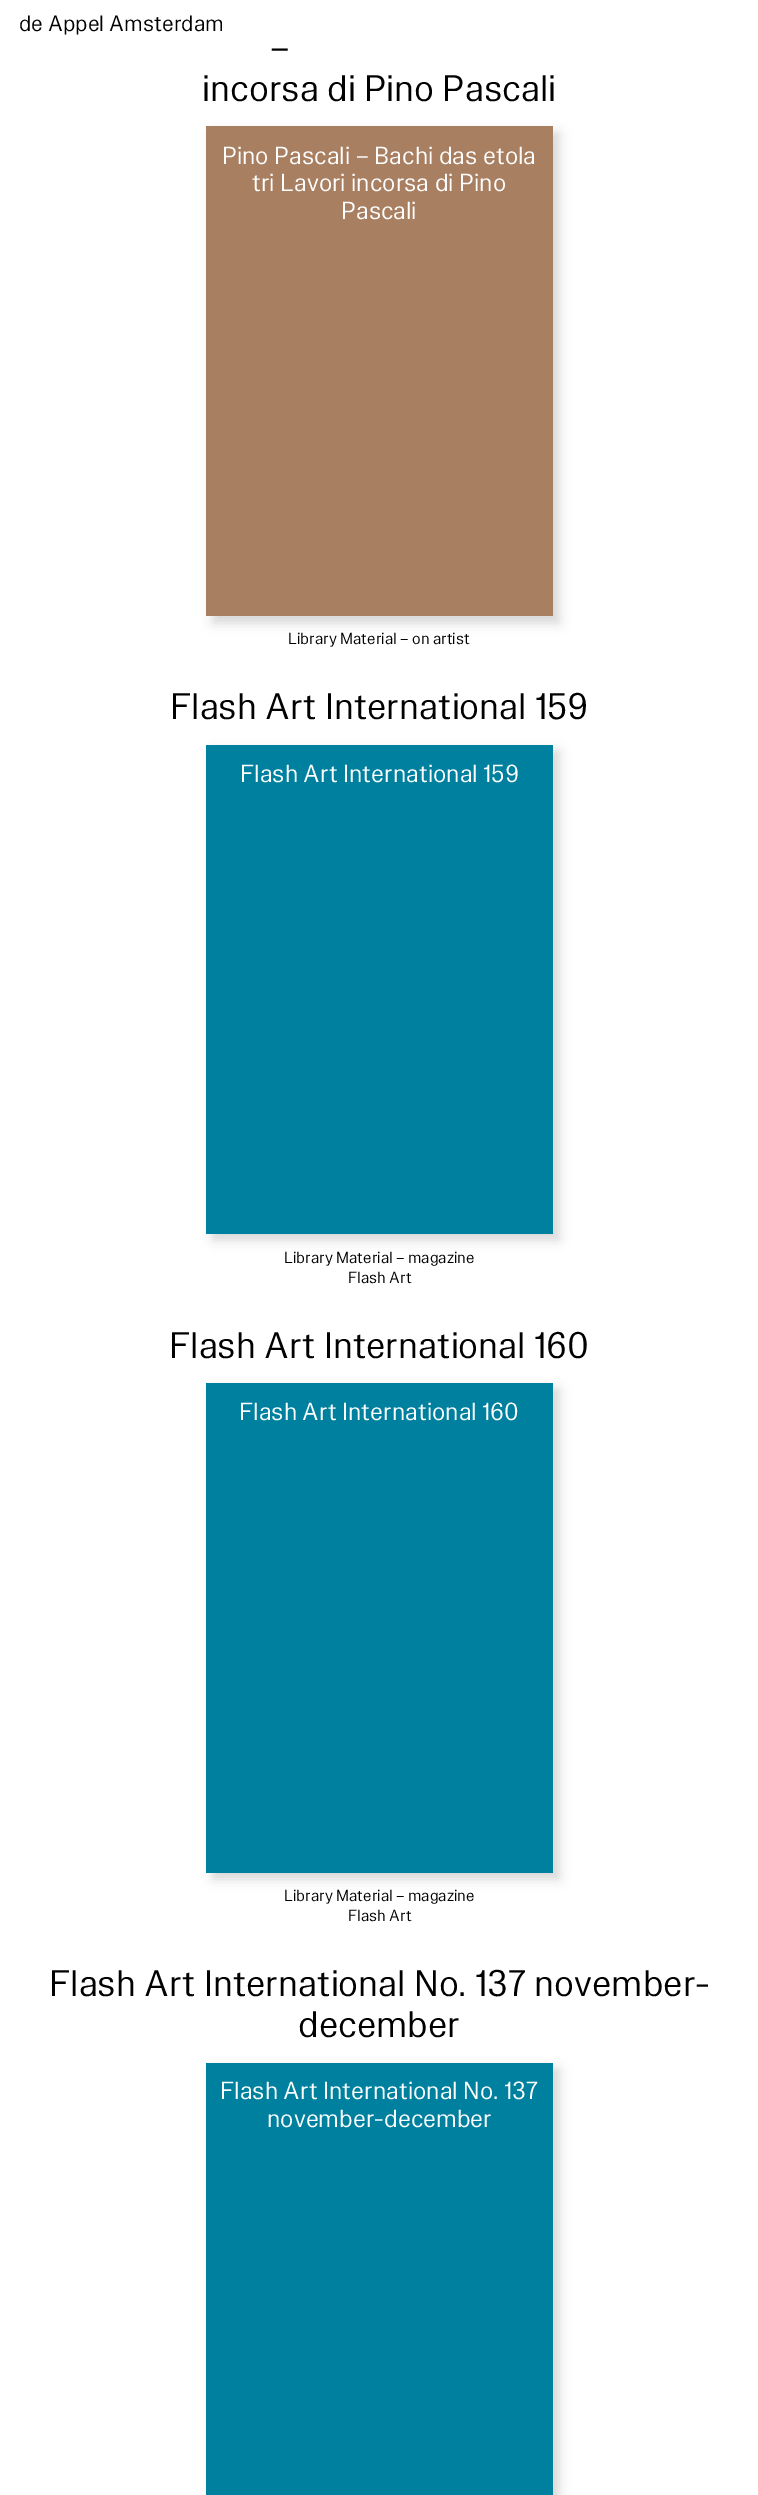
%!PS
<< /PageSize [758 2495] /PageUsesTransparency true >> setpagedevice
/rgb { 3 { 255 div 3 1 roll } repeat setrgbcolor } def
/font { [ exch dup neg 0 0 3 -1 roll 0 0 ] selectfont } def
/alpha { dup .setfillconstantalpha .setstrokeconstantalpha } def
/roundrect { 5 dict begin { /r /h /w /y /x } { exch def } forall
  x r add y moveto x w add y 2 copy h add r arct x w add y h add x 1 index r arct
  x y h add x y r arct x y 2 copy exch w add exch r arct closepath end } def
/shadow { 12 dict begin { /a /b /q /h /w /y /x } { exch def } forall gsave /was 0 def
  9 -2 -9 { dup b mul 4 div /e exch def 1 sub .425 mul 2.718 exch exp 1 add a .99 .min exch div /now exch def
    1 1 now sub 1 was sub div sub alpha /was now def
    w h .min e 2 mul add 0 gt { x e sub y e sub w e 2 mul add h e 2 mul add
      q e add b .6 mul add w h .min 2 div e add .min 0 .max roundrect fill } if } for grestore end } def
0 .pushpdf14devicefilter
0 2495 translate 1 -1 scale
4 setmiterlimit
255 255 255 rgb
0 0 758 2495 rectfill
0 0 0 rgb
213 133 346 490 0 6 0.16 shadow
168 127 97 rgb
206 126 347 490 rectfill
0 0 0 rgb
213 751 346 489 0 6 0.16 shadow
0 128 159 rgb
206 745 347 489 rectfill
0 0 0 rgb
213 1389 346 490 0 6 0.16 shadow
0 128 159 rgb
206 1383 347 490 rectfill
0 0 0 rgb
213 2069 346 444 0 6 0.16 shadow
0 128 159 rgb
206 2063 347 432 rectfill
/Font-Regular 22.5 font
0 0 0 rgb
19 31 moveto (de Appel Amsterdam) show
/Font-Regular 37.5 font
270 60 moveto (–) show
202 101 moveto (incorsa di Pino Pascali) show
/Font-Regular 25 font
255 255 255 rgb
[
  [(Pino Pascali – Bachi das etola) 222 164]
  [(tri Lavori incorsa di Pino) 252 191]
  [(Pascali) 341 219]
] { aload pop moveto show } forall
/Font-Regular 16.25 font
0 0 0 rgb
288 644 moveto (Library Material – on artist) show
/Font-Regular 37.5 font
170 719 moveto (Flash Art International 159) show
/Font-Regular 25 font
255 255 255 rgb
240 782 moveto (Flash Art International 159) show
/Font-Regular 16.25 font
0 0 0 rgb
284 1263 moveto (Library Material – magazine) show
348 1283 moveto (Flash Art) show
/Font-Regular 37.5 font
169 1358 moveto (Flash Art International 160) show
/Font-Regular 25 font
255 255 255 rgb
239 1420 moveto (Flash Art International 160) show
/Font-Regular 16.25 font
0 0 0 rgb
284 1901 moveto (Library Material – magazine) show
348 1921 moveto (Flash Art) show
/Font-Regular 37.5 font
49 1996 moveto (Flash Art International No. 137 november-) show
298 2037 moveto (december) show
/Font-Regular 25 font
255 255 255 rgb
220 2099 moveto (Flash Art International No. 137) show
267 2127 moveto (november-december) show
.poppdf14devicefilter showpage
